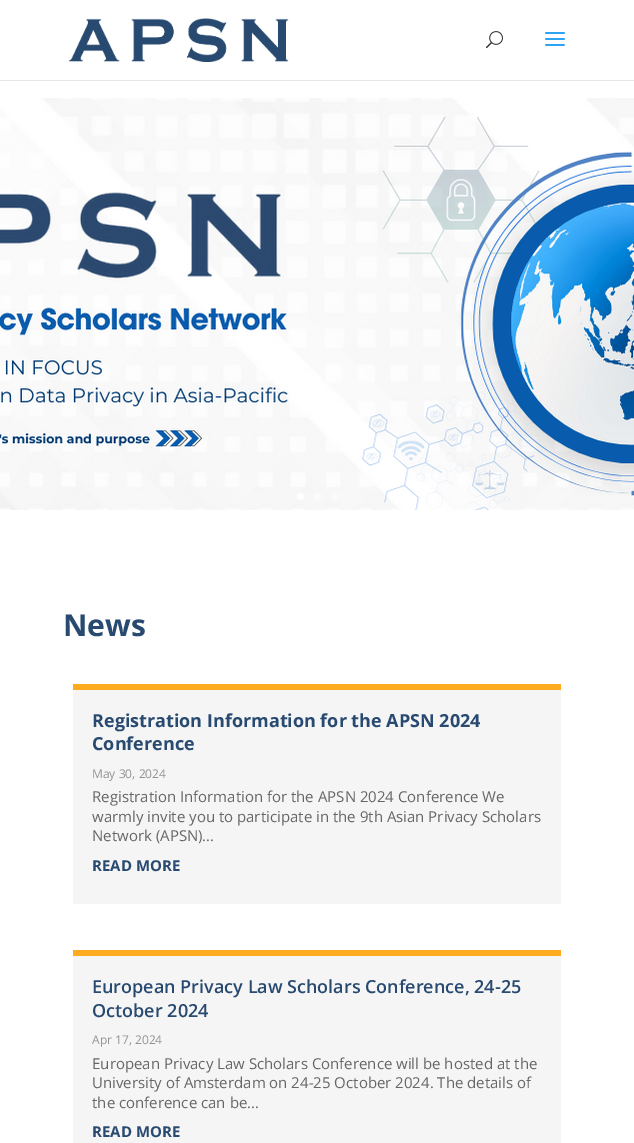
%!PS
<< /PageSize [634 1143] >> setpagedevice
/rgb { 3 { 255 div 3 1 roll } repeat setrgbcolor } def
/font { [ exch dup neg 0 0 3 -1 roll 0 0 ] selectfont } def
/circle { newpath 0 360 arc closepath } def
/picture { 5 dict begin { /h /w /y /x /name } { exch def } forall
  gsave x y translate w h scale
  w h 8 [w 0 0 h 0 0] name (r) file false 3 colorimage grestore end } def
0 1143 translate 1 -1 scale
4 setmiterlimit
255 255 255 rgb
0 0 634 1143 rectfill
230 230 230 rgb
0 80 634 1 rectfill
(img/1.rgb) 68 18 221 44 picture
(img/2.rgb) 486 31 17 18 picture
(img/3.rgb) 545 32 20 14 picture
(img/4.rgb) 0 98 634 412 picture
255 255 255 rgb
300.5 496.5 3.5 circle fill
251 251 251 rgb
317.5 496.5 3.5 circle fill
334.5 496.5 3.5 circle fill
[
  [73 690 488 214 245 245 245]
  [73 684 488 6 255 171 31]
  [73 956 488 187 245 245 245]
  [73 950 488 6 255 171 31]
] { aload pop rgb rectfill } forall
/OpenSans-Bold 30 font
41 74 112 rgb
63 636 moveto (News) show
/OpenSans-Bold 18 font
92 727 moveto (Registration Information for the APSN 2024) show
92 750 moveto (Conference) show
/OpenSans-Regular 12 font
147 147 147 rgb
92 778 moveto (May 30, 2024) show
/OpenSans-Regular 15 font
102 102 102 rgb
[
  [(Registration Information for the APSN 2024 Conference We) 92 802]
  [(warmly invite you to participate in the 9th Asian Privacy Scholars) 92 822]
  [(Network \(APSN\)...) 92 841]
] { aload pop moveto show } forall
/OpenSans-Bold 15 font
41 74 112 rgb
92 871 moveto (READ MORE) show
/OpenSans-SemiBold 18 font
92 993 moveto (European Privacy Law Scholars Conference, 24-25) show
92 1017 moveto (October 2024) show
/OpenSans-Regular 12 font
147 147 147 rgb
92 1044 moveto (Apr 17, 2024) show
/OpenSans-Regular 15 font
102 102 102 rgb
[
  [(European Privacy Law Scholars Conference will be hosted at the) 92 1069]
  [(University of Amsterdam on 24-25 October 2024. The details of) 92 1088]
  [(the conference can be...) 92 1108]
] { aload pop moveto show } forall
/OpenSans-Bold 15 font
41 74 112 rgb
92 1137 moveto (READ MORE) show
showpage
